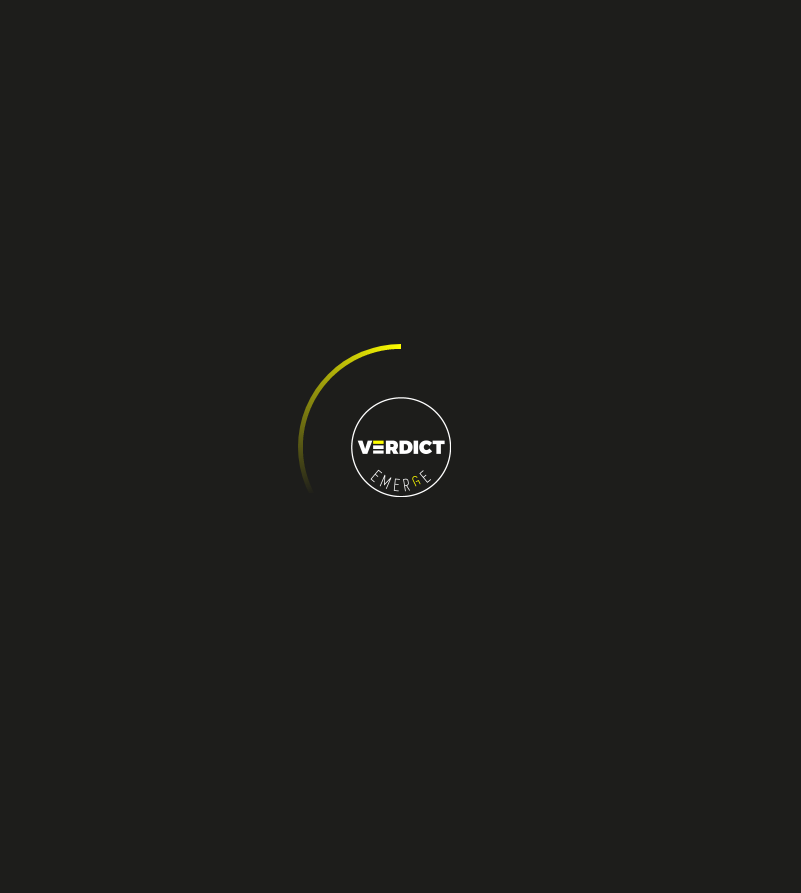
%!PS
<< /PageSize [801 893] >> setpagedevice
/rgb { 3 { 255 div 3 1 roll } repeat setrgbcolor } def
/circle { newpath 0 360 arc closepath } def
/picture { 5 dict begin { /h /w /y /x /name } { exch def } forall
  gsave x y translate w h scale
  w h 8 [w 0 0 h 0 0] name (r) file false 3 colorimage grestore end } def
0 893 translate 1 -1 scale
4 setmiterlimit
29 29 27 rgb
0 0 801 893 rectfill
(img/1.rgb) 298 344 103 149 picture
401 447 98 circle fill
(img/2.rgb) 351 397 100 100 picture
showpage
